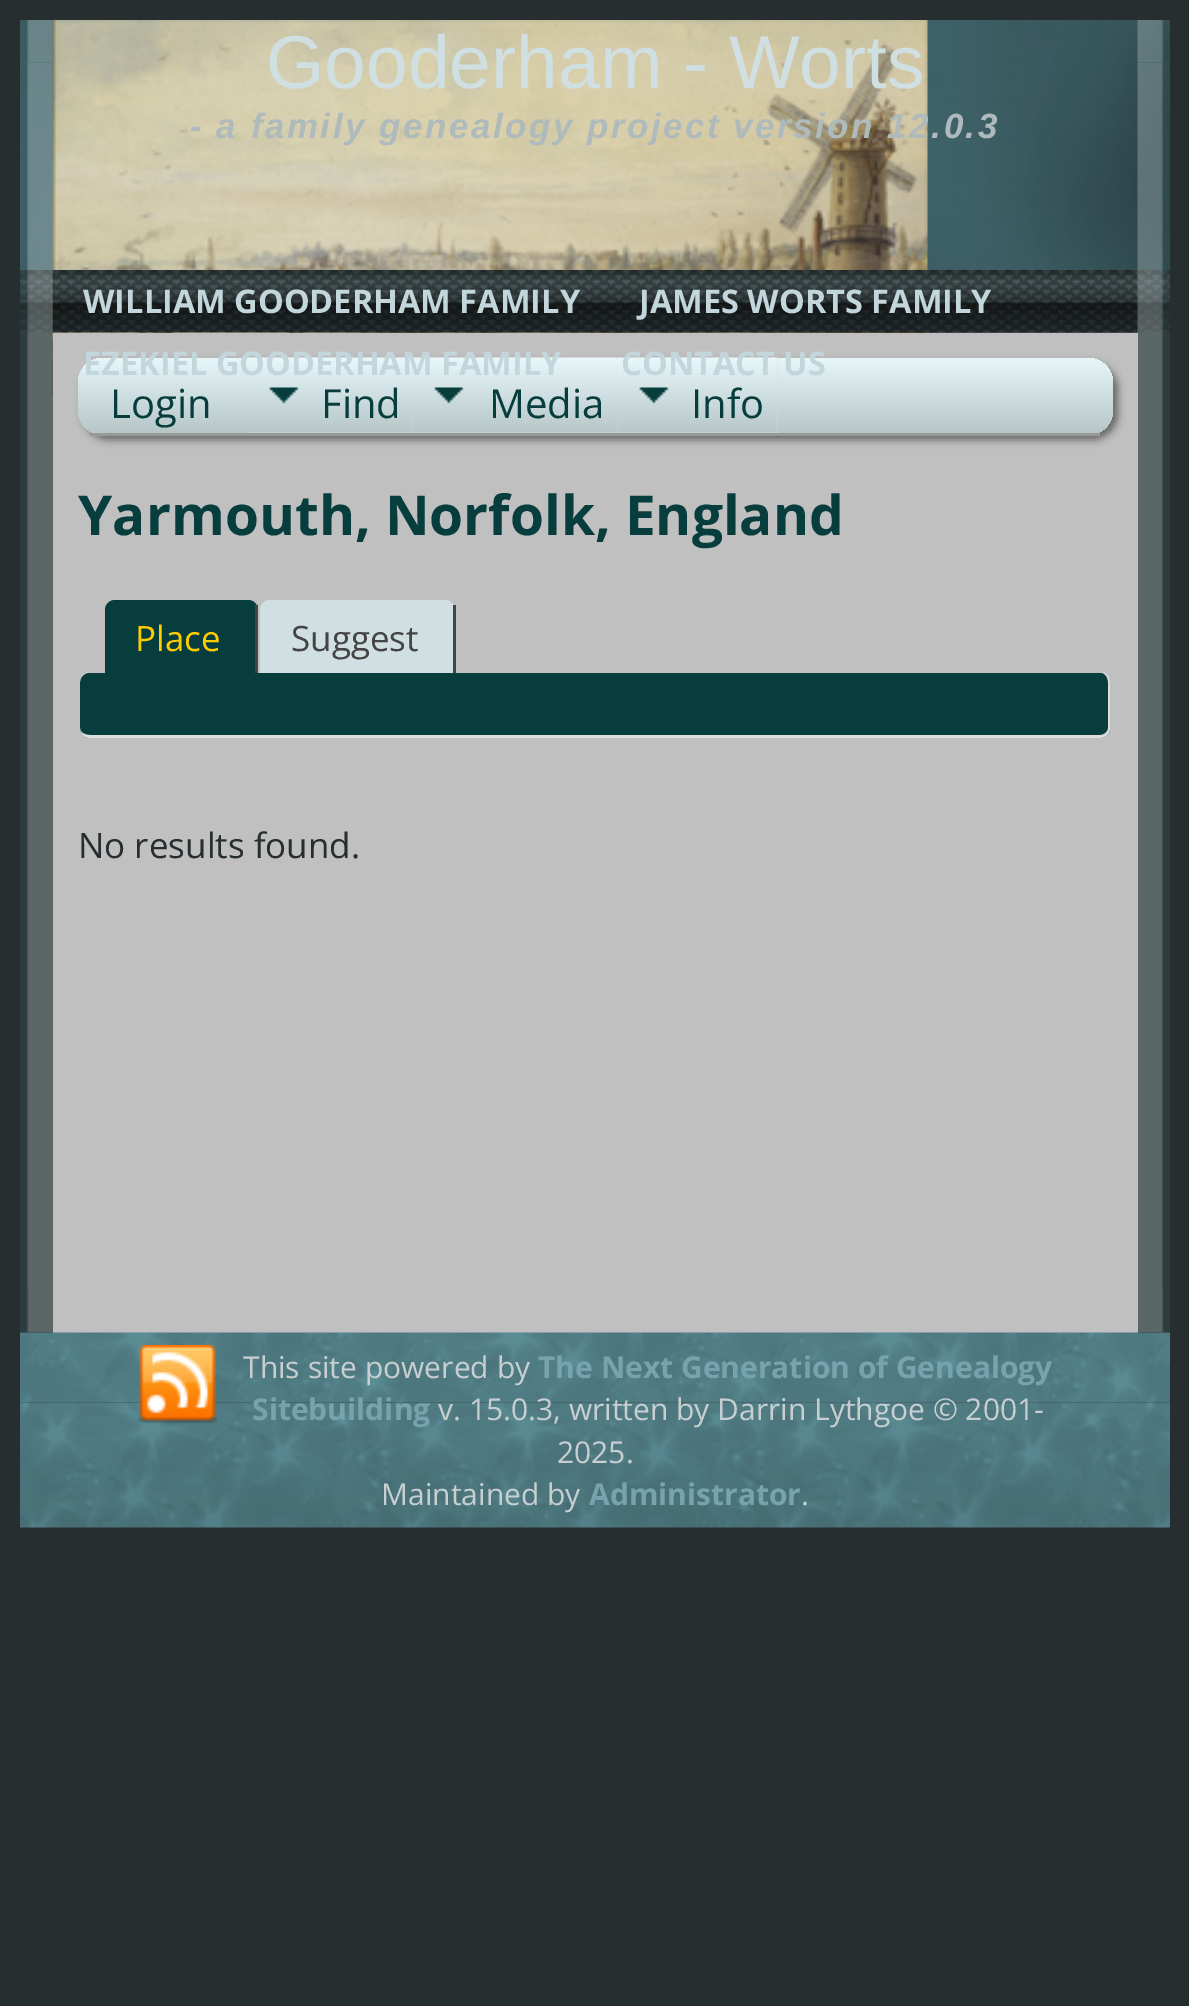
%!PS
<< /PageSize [1189 2006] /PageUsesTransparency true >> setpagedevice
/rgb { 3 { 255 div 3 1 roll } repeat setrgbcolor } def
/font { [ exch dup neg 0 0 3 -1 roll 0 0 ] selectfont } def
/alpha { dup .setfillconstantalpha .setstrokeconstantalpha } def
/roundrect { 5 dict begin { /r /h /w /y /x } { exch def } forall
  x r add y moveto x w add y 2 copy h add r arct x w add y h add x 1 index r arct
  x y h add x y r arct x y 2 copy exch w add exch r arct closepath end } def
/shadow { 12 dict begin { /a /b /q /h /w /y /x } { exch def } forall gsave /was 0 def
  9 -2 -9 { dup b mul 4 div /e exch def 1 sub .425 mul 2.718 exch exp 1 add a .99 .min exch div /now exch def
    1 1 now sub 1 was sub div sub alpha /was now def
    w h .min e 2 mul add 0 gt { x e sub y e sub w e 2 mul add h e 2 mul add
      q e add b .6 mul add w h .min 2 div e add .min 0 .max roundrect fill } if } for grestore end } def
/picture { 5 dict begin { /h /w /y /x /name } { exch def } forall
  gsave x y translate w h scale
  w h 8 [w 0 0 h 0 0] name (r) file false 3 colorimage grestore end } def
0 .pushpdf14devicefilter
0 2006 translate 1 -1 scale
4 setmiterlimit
39 46 48 rgb
0 0 1189 2006 rectfill
(img/1.rgb) 20 20 1150 250 picture
(img/2.rgb) 20 20 33 43 picture
(img/9.rgb) 1137 20 27 43 picture
(img/14.rgb) 20 270 1150 63 picture
(img/10.rgb) 20 62 36 1228 picture
(img/11.rgb) 1127 62 43 1228 picture
(img/3.rgb) 52 20 1086 250 picture
0.4 alpha
170 185 185 rgb
924 332 204 1 rectfill
1 alpha
(img/4.rgb) 52 20 876 375 picture
(img/5.rgb) 52 270 1086 63 picture
192 192 192 rgb
53 333 1085 1000 rectfill
102 102 102 rgb
83 363 1035 77 25 4 1 shadow
207 223 226 rgb
78 358 1035 77 25 roundrect fill
gsave
78 358 1035 77 25 roundrect clip newpath
gsave 103 358 moveto 1088 358 lineto 1102 358 1113 369 1113 383 curveto 1113 433 lineto 78 433 lineto 78 383 lineto 78 369 89 358 103 358 curveto closepath clip newpath
<< /ShadingType 2 /ColorSpace /DeviceRGB /Coords [595 357 595 433] /Extend [true true] /Function << /FunctionType 2 /Domain [0 1] /C0 [0.906 0.969 0.98] /C1 [0.718 0.78 0.784] /N 1 >> >> shfill grestore
grestore
153 153 153 rgb
90 433 1010 3 rectfill
207 223 226 rgb
248 358 530 75 rectfill
(img/6.rgb) 247 357 166 76 picture
(img/7.rgb) 412 357 206 76 picture
(img/8.rgb) 617 357 161 76 picture
7 61 60 rgb
115 600 moveto 248 600 lineto 253.5 600 258 604.5 258 610 curveto 258 673 lineto 105 673 lineto 105 610 lineto 105 604.5 109.5 600 115 600 curveto closepath fill
68 68 68 rgb
255 605 3 68 rectfill
207 223 226 rgb
270 600 moveto 445 600 lineto 450.5 600 455 604.5 455 610 curveto 455 673 lineto 260 673 lineto 260 610 lineto 260 604.5 264.5 600 270 600 curveto closepath fill
68 68 68 rgb
453 605 3 68 rectfill
7 61 60 rgb
80 673 1030 65 10 roundrect fill
221 221 221 rgb
90 672 moveto 1100 672 lineto 1106 672 1110 677 1110 682 curveto 1110 728 lineto 1110 733 1106 738 1100 738 curveto 90 738 lineto 84 738 80 733 80 728 curveto 80 682 lineto 80 677 84 672 90 672 curveto closepath 90 672 moveto 1100 672 lineto 1104 672 1108 677 1108 682 curveto 1108 728 lineto 1108 732 1104 735 1100 735 curveto 90 735 lineto 84 735 80 732 80 728 curveto 80 682 lineto 80 677 84 672 90 672 curveto closepath eofill
(img/12.rgb) 20 1290 33 43 picture
(img/13.rgb) 1138 1290 32 43 picture
(img/15.rgb) 20 1332 1150 71 picture
(img/17.rgb) 20 1402 1150 126 picture
(img/16.rgb) 137 1345 81 79 picture
/LiberationSans-Regular 75 font
207 223 226 rgb
266 88 moveto (Gooderham - Worts) show
/LiberationSans-BoldItalic 35 font
174 186 188 rgb
190 138 moveto 2.5 0 (- a family genealogy project version 12.0.3) ashow
/OpenSans-Bold 32.5 font
194 214 219 rgb
[
  [(WILLIAM GOODERHAM FAMILY) 83 313]
  [(JAMES WORTS FAMILY) 639 313]
  [(EZEKIEL GOODERHAM FAMILY) 83 375]
  [(CONTACT US) 621 375]
] { aload pop moveto show } forall
/OpenSans-Regular 40 font
7 61 60 rgb
[
  [(Login) 110 418]
  [(Find) 321 418]
  [(Media) 489 418]
  [(Info) 691 418]
] { aload pop moveto show } forall
/OpenSans-Bold 55 font
78 535 moveto (Yarmouth, Norfolk, England) show
/OpenSans-Regular 35 font
255 204 0 rgb
135 651 moveto (Place) show
68 68 68 rgb
291 651 moveto (Suggest) show
39 46 48 rgb
78 858 moveto (No results found.) show
/OpenSans-Regular 30 font
199 207 209 rgb
243 1378 moveto (This site powered by) show
/OpenSans-Bold 30 font
118 163 173 rgb
538 1378 moveto (The Next Generation of Genealogy) show
252 1420 moveto (Sitebuilding) show
/OpenSans-Regular 30 font
199 207 209 rgb
[
  [(v. 15.0.3, written by Darrin Lythgoe © 2001-) 438 1420]
  [(2025.) 557 1463]
  [(Maintained by) 381 1505]
] { aload pop moveto show } forall
/OpenSans-Bold 30 font
118 163 173 rgb
589 1505 moveto (Administrator) show
/OpenSans-Regular 30 font
199 207 209 rgb
801 1505 moveto (.) show
.poppdf14devicefilter showpage
